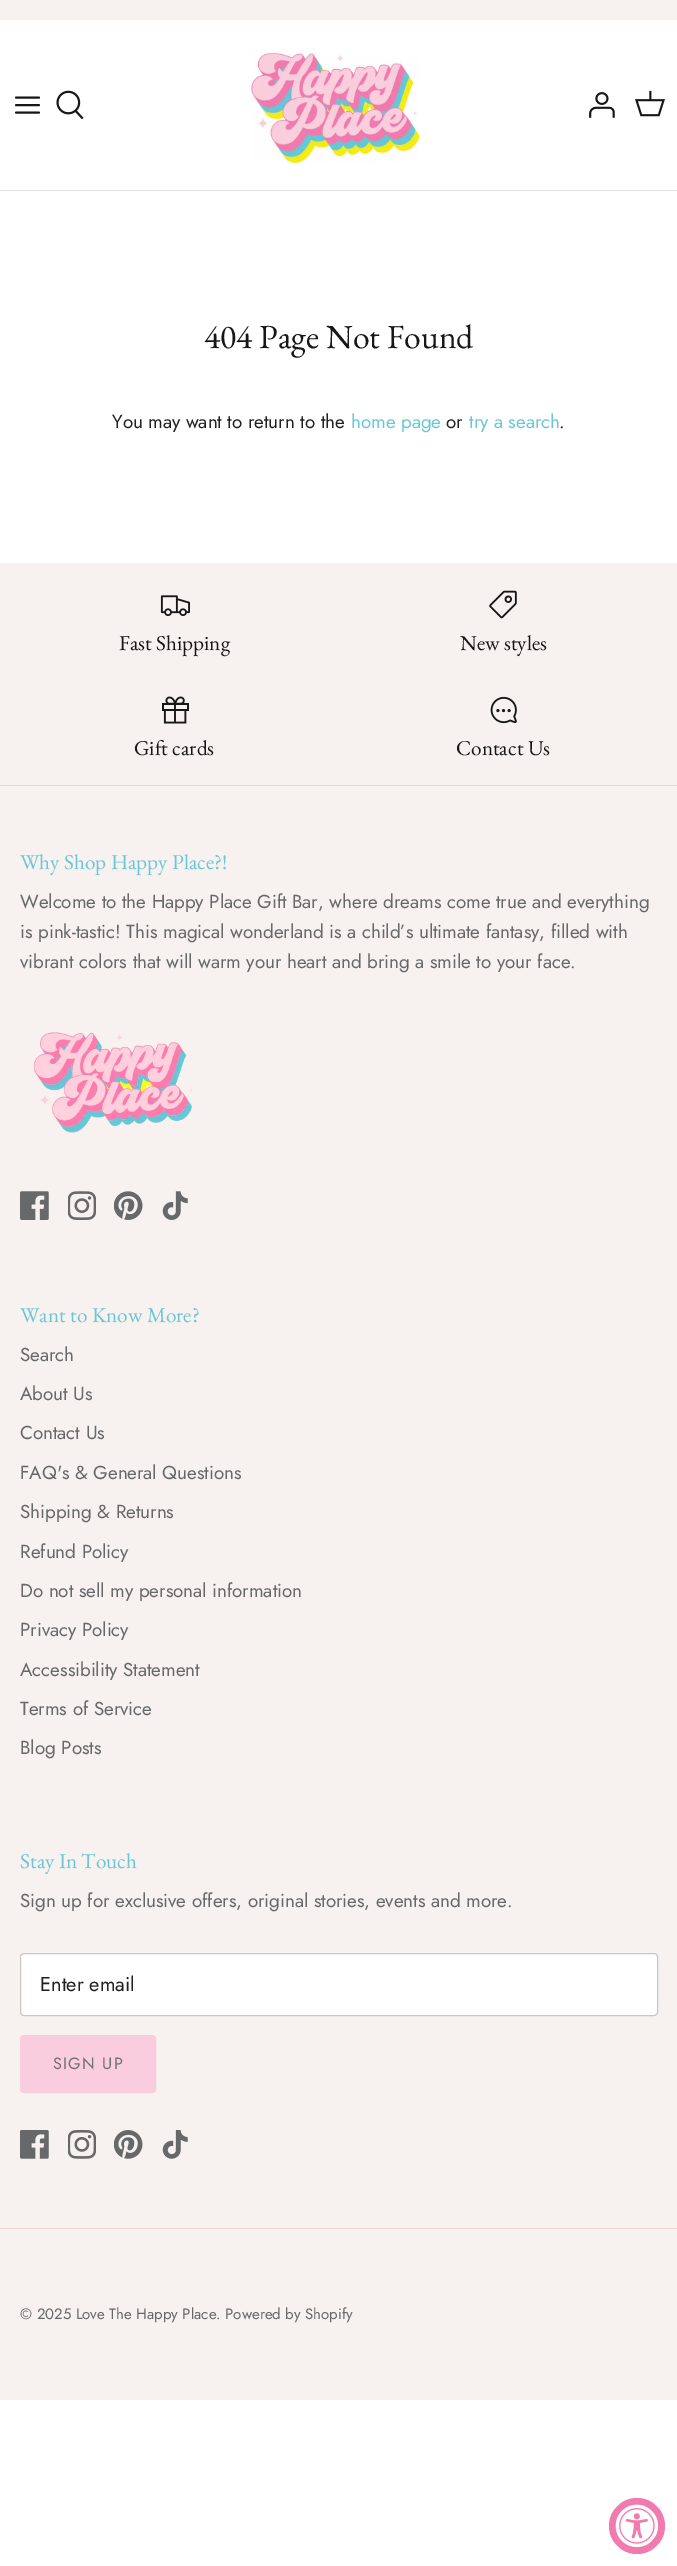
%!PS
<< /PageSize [677 2566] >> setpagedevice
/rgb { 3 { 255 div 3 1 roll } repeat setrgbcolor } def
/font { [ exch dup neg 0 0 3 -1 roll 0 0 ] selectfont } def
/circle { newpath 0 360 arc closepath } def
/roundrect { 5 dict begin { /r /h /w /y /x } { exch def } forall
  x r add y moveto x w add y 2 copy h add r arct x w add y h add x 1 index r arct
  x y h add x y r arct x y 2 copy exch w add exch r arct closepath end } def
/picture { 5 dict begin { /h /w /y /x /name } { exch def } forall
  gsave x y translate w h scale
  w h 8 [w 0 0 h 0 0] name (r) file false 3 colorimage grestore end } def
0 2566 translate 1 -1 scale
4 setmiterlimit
255 255 255 rgb
0 0 677 2566 rectfill
247 241 240 rgb
0 0 677 20 rectfill
223 227 232 rgb
0 190 677 1 rectfill
23 23 23 rgb
1.9 setlinewidth
1 setlinecap
1 setlinejoin
16 105 moveto 39 105 lineto 16 97.5 moveto 39 97.5 lineto 16 112.5 moveto 39 112.5 lineto stroke
(img/1.rgb) 56 90 28 30 picture
(img/2.rgb) 251 52 169 112 picture
(img/3.rgb) 589 92 26 26 picture
(img/4.rgb) 635 90 30 27 picture
247 241 240 rgb
0 563 677 1837 rectfill
(img/5.rgb) 160 595 30 21 picture
(img/6.rgb) 489 590 28 29 picture
(img/7.rgb) 162 696 27 28 picture
(img/8.rgb) 490 696 27 28 picture
236 214 209 rgb
0 785 677 1 rectfill
(img/9.rgb) 33 1032 160 101 picture
(img/10.rgb) 20 1191 29 29 picture
(img/11.rgb) 68 1191 28 29 picture
(img/12.rgb) 114 1191 29 29 picture
(img/13.rgb) 162 1191 26 29 picture
255 255 255 rgb
20.5 1953.5 637 62 3.5 roundrect gsave fill grestore
200 200 200 rgb
1 setlinewidth
0 setlinecap
0 setlinejoin
stroke
249 205 221 rgb
20.5 2035.5 135 57 3.5 roundrect gsave fill grestore
stroke
(img/14.rgb) 20 2130 29 29 picture
(img/15.rgb) 68 2130 28 29 picture
(img/16.rgb) 114 2130 29 29 picture
(img/17.rgb) 162 2130 26 29 picture
236 214 209 rgb
0 2228 677 1 rectfill
241 123 174 rgb
637 2526 28 circle fill
(img/18.rgb) 615 2504 44 44 picture
/EBGaramond-Regular 33.75 font
23 23 23 rgb
204 348 moveto (404 Page Not Found) show
/Jost-Regular 18.75 font
33 33 33 rgb
112 428 moveto (You may want to return to the) show
106 199 213 rgb
351 428 moveto (home page) show
33 33 33 rgb
446 428 moveto (or) show
106 199 213 rgb
469 428 moveto (try a search) show
33 33 33 rgb
559 428 moveto (.) show
/EBGaramond-Regular 21.25 font
23 23 23 rgb
[
  [(Fast Shipping) 119 650]
  [(New styles) 460 650]
  [(Gift cards) 134 755]
  [(Contact Us) 456 755]
] { aload pop moveto show } forall
106 199 213 rgb
20 869 moveto (Why Shop Happy Place?!) show
/Jost-Regular 18.75 font
103 104 105 rgb
[
  [(Welcome to the Happy Place Gift Bar, where dreams come true and everything) 20 908]
  [(is pink-tastic! This magical wonderland is a child’s ultimate fantasy, filled with) 20 938]
  [(vibrant colors that will warm your heart and bring a smile to your face.) 20 968]
] { aload pop moveto show } forall
/EBGaramond-Regular 21.25 font
106 199 213 rgb
20 1322 moveto (Want to Know More?) show
/Jost-Regular 18.75 font
103 104 105 rgb
[
  [(Search) 20 1361]
  [(About Us) 20 1400]
  [(Contact Us) 20 1439]
  [(FAQ's & General Questions) 20 1479]
  [(Shipping & Returns) 20 1518]
  [(Refund Policy) 20 1558]
  [(Do not sell my personal information) 20 1597]
  [(Privacy Policy) 20 1636]
  [(Accessibility Statement) 20 1676]
  [(Terms of Service) 20 1715]
  [(Blog Posts) 20 1754]
] { aload pop moveto show } forall
/EBGaramond-Regular 21.25 font
106 199 213 rgb
20 1868 moveto (Stay In Touch) show
/Jost-Regular 18.75 font
103 104 105 rgb
20 1907 moveto (Sign up for exclusive offers, original stories, events and more.) show
/Jost-Regular 20 font
33 33 33 rgb
40 1991 moveto (Enter email) show
/Jost-Regular 16.25 font
112 113 115 rgb
53 2069 moveto 1.25 0 (SIGN UP) ashow
/Jost-Regular 15 font
103 104 105 rgb
20 2319 moveto (© 2025 Love The Happy Place. Powered by Shopify) show
showpage
